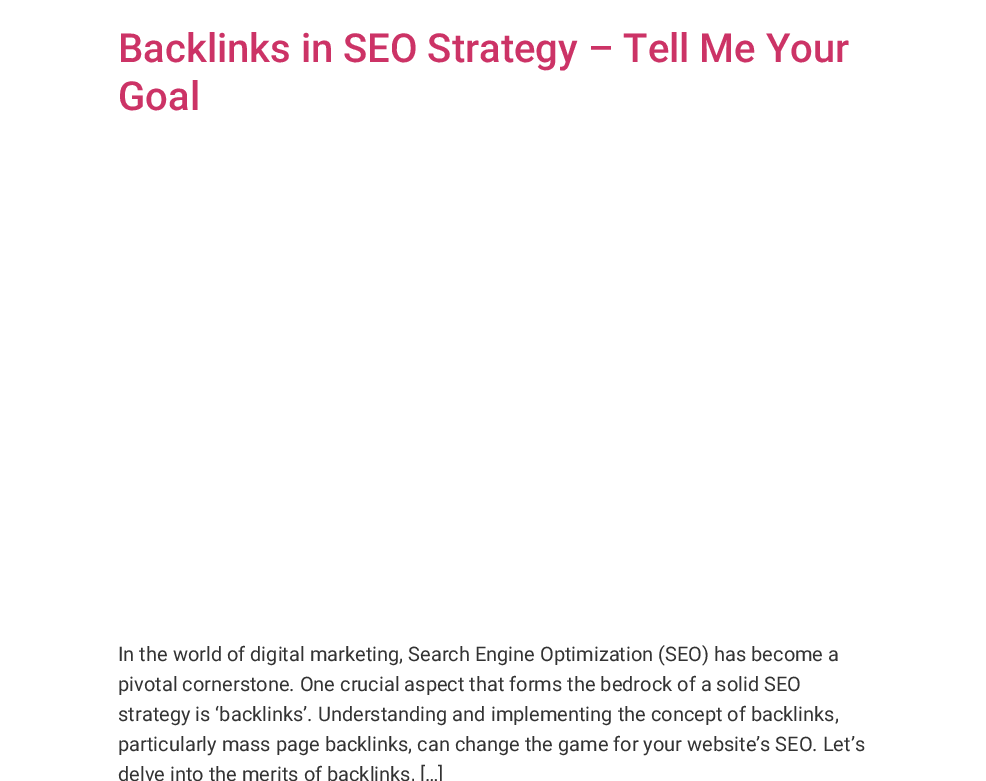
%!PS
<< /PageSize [986 781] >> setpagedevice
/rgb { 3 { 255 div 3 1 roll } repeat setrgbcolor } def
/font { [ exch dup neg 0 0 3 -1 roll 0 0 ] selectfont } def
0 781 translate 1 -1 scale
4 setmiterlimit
255 255 255 rgb
0 0 986 781 rectfill
/Roboto-Medium 40 font
204 51 102 rgb
118 62 moveto (Backlinks in SEO Strategy – Tell Me Your) show
118 110 moveto (Goal) show
/Roboto-Regular 20 font
51 51 51 rgb
[
  [(In the world of digital marketing, Search Engine Optimization \(SEO\) has become a) 118 661]
  [(pivotal cornerstone. One crucial aspect that forms the bedrock of a solid SEO) 118 691]
  [(strategy is ‘backlinks’. Understanding and implementing the concept of backlinks,) 118 721]
  [(particularly mass page backlinks, can change the game for your website’s SEO. Let’s) 118 751]
  [(delve into the merits of backlinks, […]) 118 781]
] { aload pop moveto show } forall
showpage
